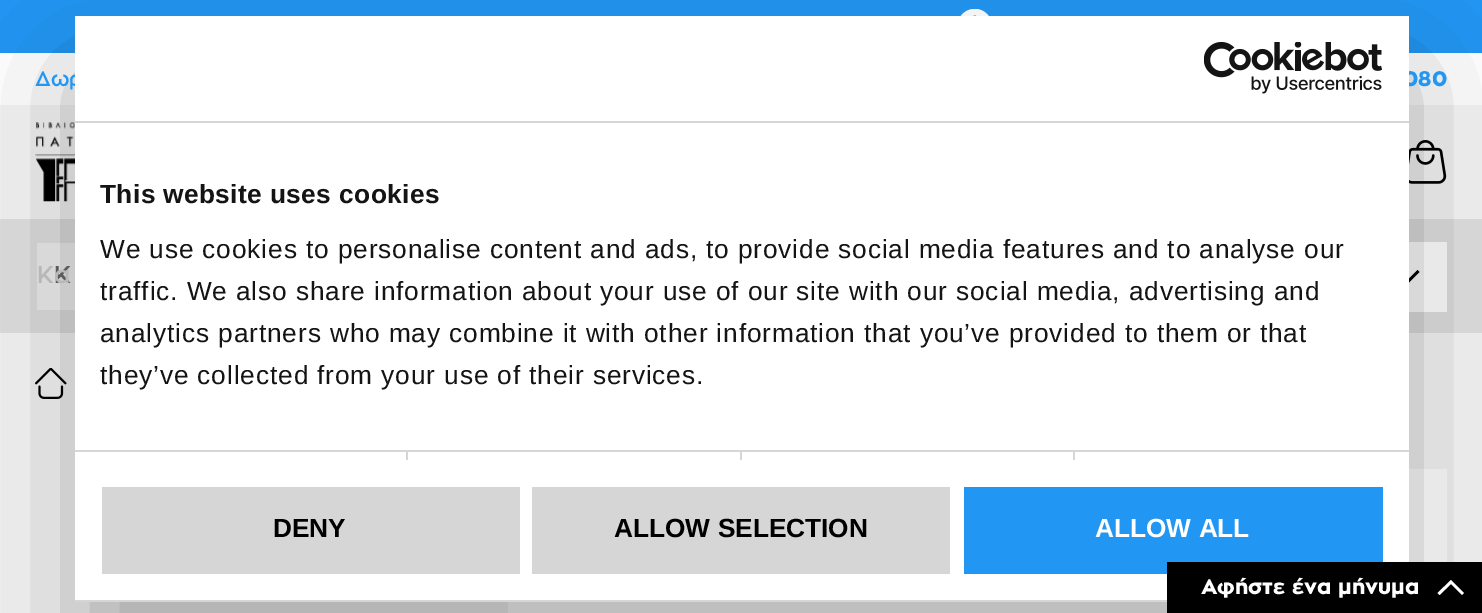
%!PS
<< /PageSize [1482 613] /PageUsesTransparency true >> setpagedevice
/rgb { 3 { 255 div 3 1 roll } repeat setrgbcolor } def
/font { [ exch dup neg 0 0 3 -1 roll 0 0 ] selectfont } def
/alpha { dup .setfillconstantalpha .setstrokeconstantalpha } def
/roundrect { 5 dict begin { /r /h /w /y /x } { exch def } forall
  x r add y moveto x w add y 2 copy h add r arct x w add y h add x 1 index r arct
  x y h add x y r arct x y 2 copy exch w add exch r arct closepath end } def
/shadow { 12 dict begin { /a /b /q /h /w /y /x } { exch def } forall gsave /was 0 def
  9 -2 -9 { dup b mul 4 div /e exch def 1 sub .425 mul 2.718 exch exp 1 add a .99 .min exch div /now exch def
    1 1 now sub 1 was sub div sub alpha /was now def
    w h .min e 2 mul add 0 gt { x e sub y e sub w e 2 mul add h e 2 mul add
      q e add b .6 mul add w h .min 2 div e add .min 0 .max roundrect fill } if } for grestore end } def
/picture { 5 dict begin { /h /w /y /x /name } { exch def } forall
  gsave x y translate w h scale
  w h 8 [w 0 0 h 0 0] name (r) file false 3 colorimage grestore end } def
0 .pushpdf14devicefilter
0 613 translate 1 -1 scale
4 setmiterlimit
245 245 245 rgb
0 0 1482 613 rectfill
33 150 243 rgb
0 0 1482 53 rectfill
(img/1.rgb) 960 9 29 7 picture
255 255 255 rgb
0 53 1482 52 rectfill
(img/2.rgb) 35 122 40 80 picture
(img/3.rgb) 1409 140 38 44 picture
[
  [0 219 1482 114 224 224 224]
  [37 243 38 67 238 238 238]
  [1409 242 38 70 255 255 255]
] { aload pop rgb rectfill } forall
0 0 0 rgb
2.8 setlinewidth
1397.5 271 moveto 1408 281.5 lineto 1418.5 271 lineto stroke
(img/4.rgb) 35 368 32 31 picture
255 255 255 rgb
508 469 939 144 rectfill
0 0 0 rgb
75 72 1334 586 0 59.5 0.3 shadow
214 214 214 rgb
75 600 1092 2 rectfill
/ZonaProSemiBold-SemiBold 21 font
33 150 243 rgb
35 86 moveto (Δωρ) show
/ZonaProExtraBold-ExtraBold 21 font
1403 86 moveto (080) show
/ZonaProSemiBold-SemiBold 24 font
91 91 91 rgb
54 283 moveto (Κ) show
184 184 184 rgb
37 283 moveto (Κα) show
255 255 255 rgb
75 16 1334 584 rectfill
214 214 214 rgb
75 121 1334 2 rectfill
(img/5.rgb) 1204 42 179 52 picture
75 450 1334 2 rectfill
/LiberationSans-Bold 26.25 font
20 20 20 rgb
100 203 moveto 0.4 0 (This website uses cookies) ashow
/LiberationSans-Regular 26.25 font
100 258 moveto 0.88 0 (We use cookies to personalise content and ads, to provide social media features and to analyse our) ashow
100 300 moveto 0.88 0 (traffic. We also share information about your use of our site with our social media, advertising and) ashow
100 342 moveto 0.88 0 (analytics partners who may combine it with other information that you’ve provided to them or that) ashow
100 384 moveto 0.88 0 (they’ve collected from your use of their services.) ashow
[
  [406 452 2 8 214 214 214]
  [740 452 2 8 214 214 214]
  [1073 452 2 8 214 214 214]
  [102 487 418 87 214 214 214]
] { aload pop rgb rectfill } forall
/LiberationSans-Bold 26.25 font
0 0 0 rgb
273 537 moveto (DENY) show
214 214 214 rgb
532 487 418 87 rectfill
0 0 0 rgb
614 537 moveto (ALLOW SELECTION) show
33 150 243 rgb
964 487 419 87 rectfill
255 255 255 rgb
1095 537 moveto (ALLOW ALL) show
0 0 0 rgb
1167 562 315 51 rectfill
/ZonaProExtraBold-ExtraBold 21 font
255 255 255 rgb
1201 594 moveto (Αφήστε ένα μήνυμα) show
1451 580 moveto 1464 593 lineto 1462 595 lineto 1451 584 lineto 1439.5 595 lineto 1437.5 593 lineto closepath fill
.poppdf14devicefilter showpage
